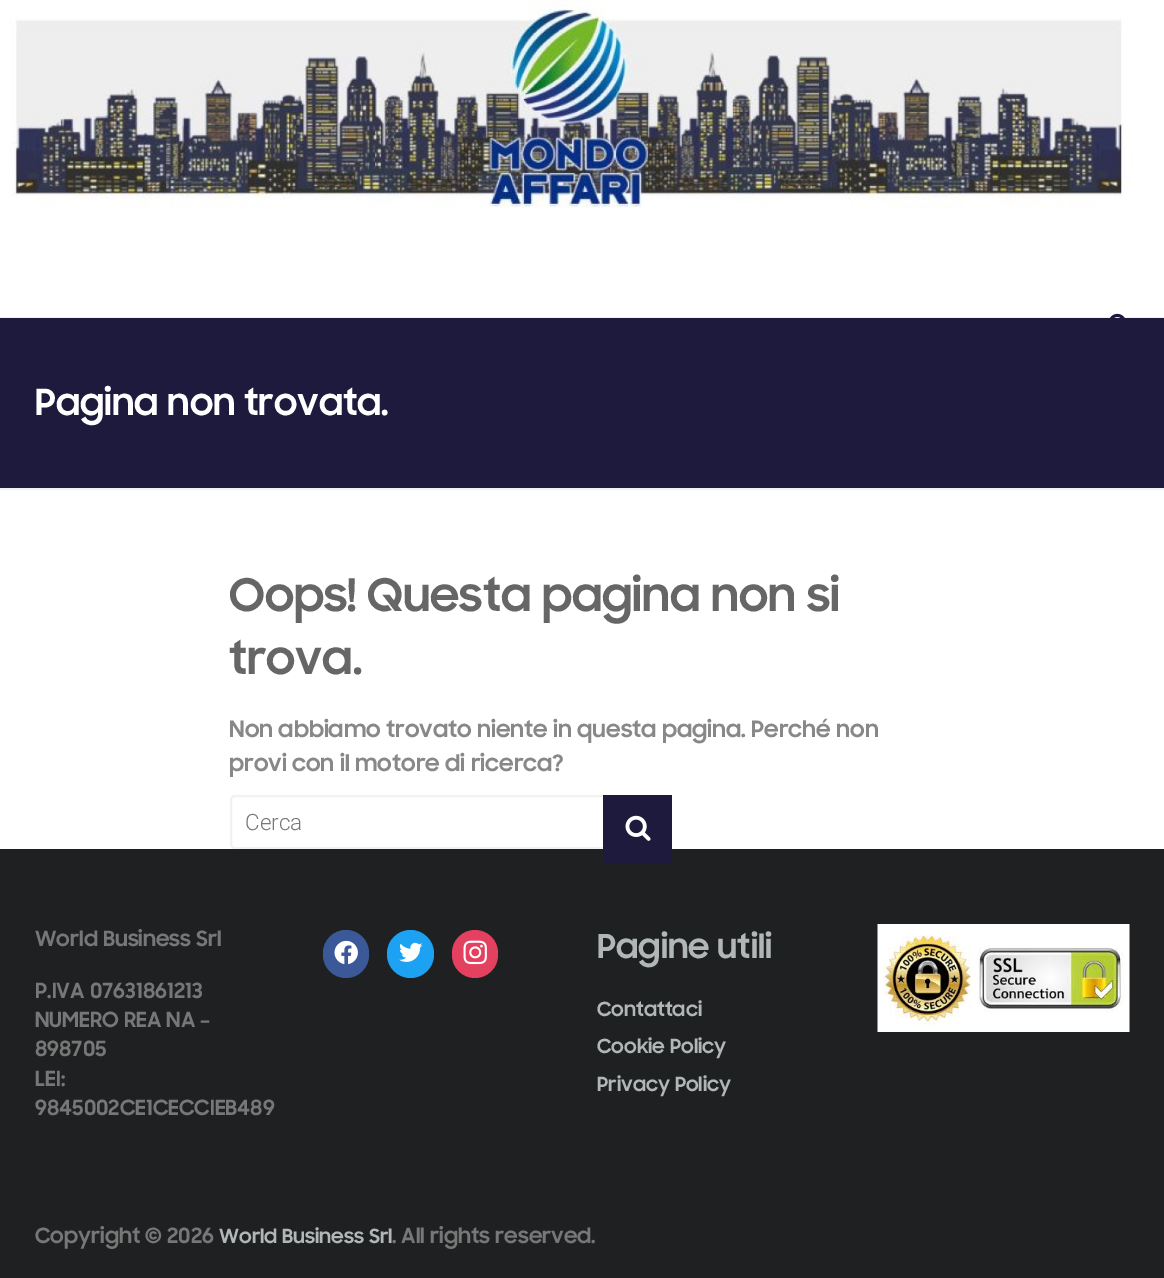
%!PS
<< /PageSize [1164 1278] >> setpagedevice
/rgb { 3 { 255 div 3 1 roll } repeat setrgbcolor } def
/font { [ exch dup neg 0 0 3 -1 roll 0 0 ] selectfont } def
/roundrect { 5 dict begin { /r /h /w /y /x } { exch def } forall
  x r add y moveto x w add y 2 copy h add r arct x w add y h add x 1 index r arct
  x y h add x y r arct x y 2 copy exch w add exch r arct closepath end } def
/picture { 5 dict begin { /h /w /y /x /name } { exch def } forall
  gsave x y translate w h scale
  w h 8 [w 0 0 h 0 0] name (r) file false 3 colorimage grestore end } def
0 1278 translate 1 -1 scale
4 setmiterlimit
255 255 255 rgb
0 0 1164 1278 rectfill
242 242 242 rgb
0 317 1164 1 rectfill
(img/1.rgb) 10 0 1123 209 picture
(img/2.rgb) 1110 313 15 5 picture
30 26 62 rgb
0 318 1164 170 rectfill
242 242 242 rgb
0 488 1164 2 rectfill
2 setlinewidth
231 796 421 52 4 roundrect stroke
31 32 33 rgb
0 849 1164 429 rectfill
30 26 62 rgb
603 795 69 68 rectfill
(img/3.rgb) 625 815 26 26 picture
59 89 152 rgb
323 930 46 48 23 roundrect fill
(img/4.rgb) 334 940 24 25 picture
29 161 242 rgb
387 930 47 48 23.5 roundrect fill
(img/5.rgb) 399 942 24 20 picture
228 64 95 rgb
452 930 46 48 23 roundrect fill
(img/6.rgb) 463 940 24 25 picture
(img/7.rgb) 877 924 253 108 picture
/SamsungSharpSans-Bold 36 font
255 255 255 rgb
35 415 moveto (Pagina non trovata.) show
/SamsungSharpSans-Bold 45 font
102 102 102 rgb
229 611 moveto (Oops! Questa pagina non si) show
229 674 moveto (trova.) show
/SamsungSharpSans-Bold 22.5 font
136 136 136 rgb
229 737 moveto (Non abbiamo trovato niente in questa pagina. Perché non) show
229 771 moveto (provi con il motore di ricerca?) show
/Roboto-Light 22.5 font
119 119 119 rgb
245 830 moveto (Cerca) show
/SamsungSharpSans-Bold 21 font
[
  [(World Business Srl) 35 946]
  [(P.IVA 07631861213) 35 998]
  [(NUMERO REA NA –) 35 1027]
  [(898705) 35 1056]
  [(LEI:) 35 1086]
  [(9845002CE1CECCIEB489) 35 1115]
] { aload pop moveto show } forall
/SamsungSharpSans-Bold 33 font
177 182 182 rgb
597 958 moveto (Pagine utili) show
/SamsungSharpSans-Bold 19.5 font
[
  [(Contattaci) 597 1016]
  [(Cookie Policy) 597 1053]
  [(Privacy Policy) 597 1091]
] { aload pop moveto show } forall
/SamsungSharpSans-Bold 21 font
119 119 119 rgb
35 1243 moveto (Copyright © 2026) show
/SamsungSharpSans-Bold 19.5 font
177 182 182 rgb
219 1243 moveto (World Business Srl) show
/SamsungSharpSans-Bold 21 font
119 119 119 rgb
392 1243 moveto (. All rights reserved.) show
showpage
